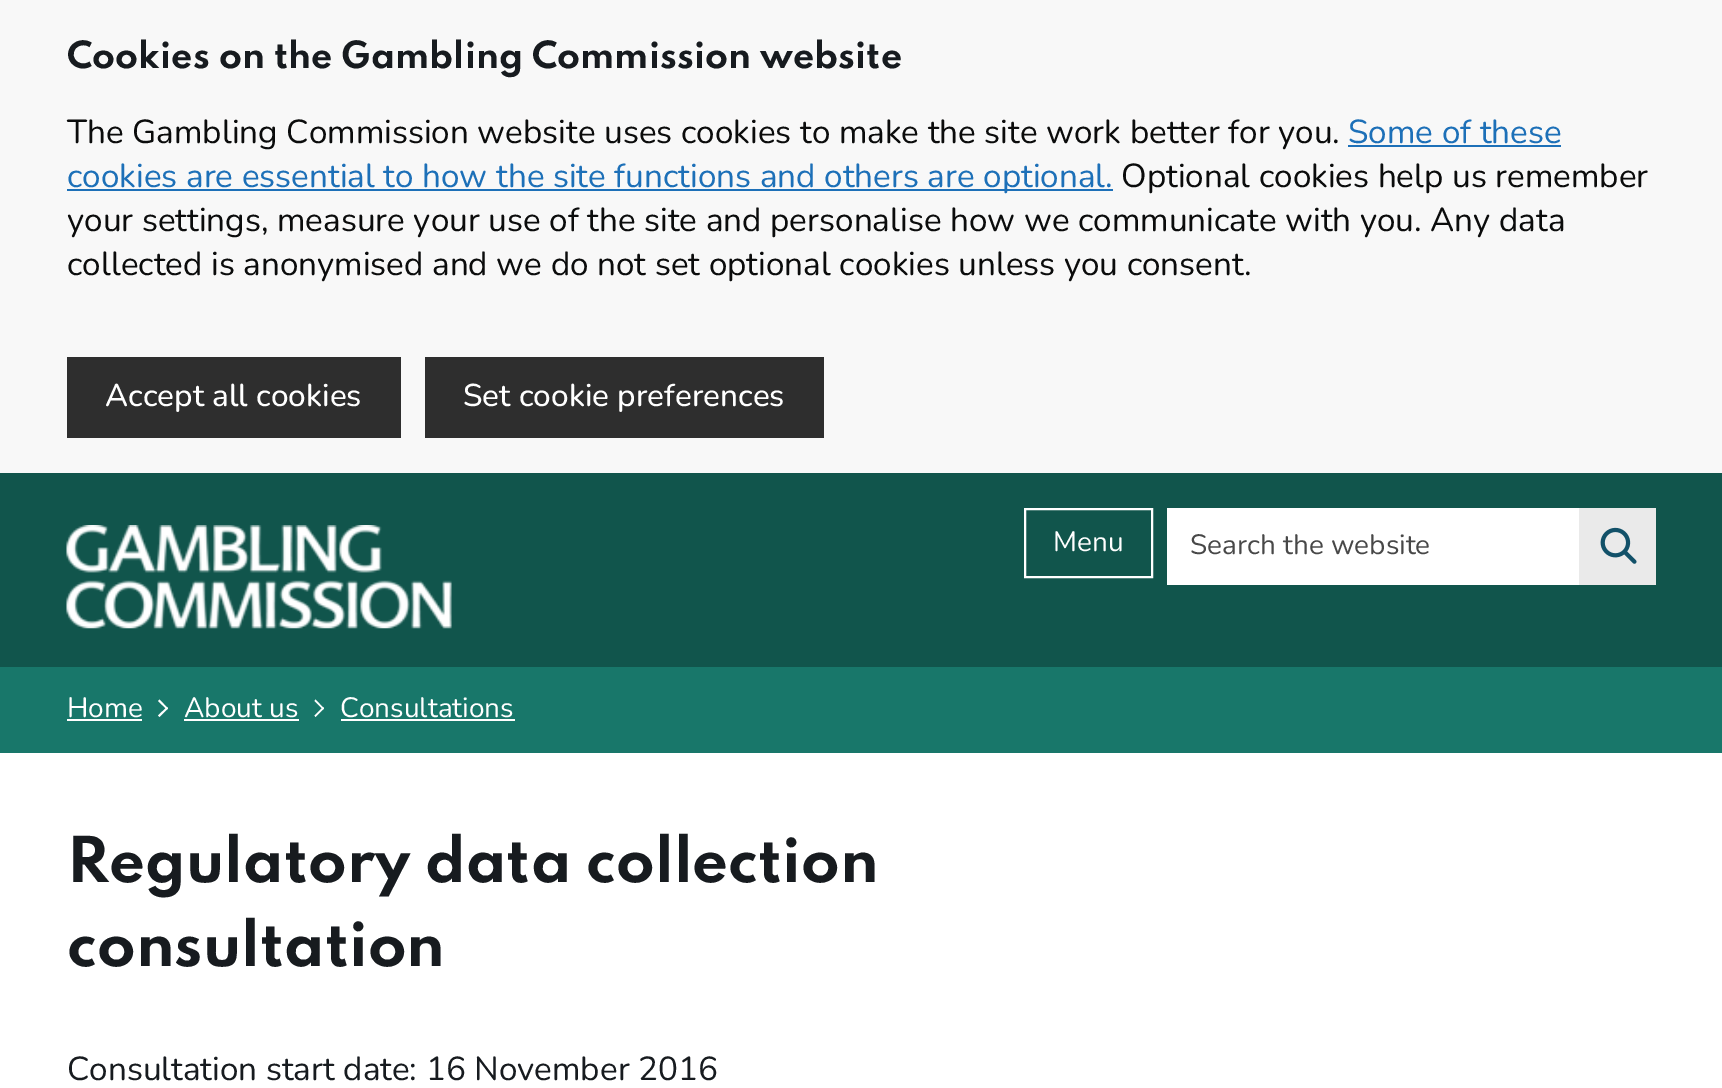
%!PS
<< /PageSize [1722 1088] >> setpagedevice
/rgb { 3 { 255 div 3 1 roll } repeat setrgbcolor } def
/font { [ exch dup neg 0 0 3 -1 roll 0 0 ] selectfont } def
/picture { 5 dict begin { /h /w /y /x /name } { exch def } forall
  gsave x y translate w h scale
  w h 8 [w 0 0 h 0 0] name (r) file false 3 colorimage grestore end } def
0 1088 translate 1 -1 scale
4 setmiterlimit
255 255 255 rgb
0 0 1722 1088 rectfill
[
  [0 0 1722 473 248 248 248]
  [1348 145 213 2 29 112 184]
  [67 189 1046 2 29 112 184]
  [67 357 334 81 46 46 46]
  [425 357 399 81 46 46 46]
  [0 473 1722 194 17 85 76]
] { aload pop rgb rectfill } forall
(img/1.rgb) 66 525 386 104 picture
255 255 255 rgb
2 setlinewidth
1025 509 127 68 rectstroke
1167 508 412 77 rectfill
234 234 234 rgb
1579 508 77 77 rectfill
(img/2.rgb) 1600 527 37 37 picture
24 119 106 rgb
0 667 1722 86 rectfill
255 255 255 rgb
67 719 75 2 rectfill
159.5 699.5 moveto 168 708.5 lineto 167 709.5 lineto 158 701 lineto closepath fill
167 707 moveto 168 708.5 lineto 159.5 717 lineto 158 715.5 lineto closepath fill
184 719 115 2 rectfill
315.5 699.5 moveto 324 708.5 lineto 323 709.5 lineto 314.5 701 lineto closepath fill
323 707 moveto 324 708.5 lineto 315.5 717 lineto 314.5 715.5 lineto closepath fill
341 719 174 2 rectfill
/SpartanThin-Bold 33.25 font
23 27 31 rgb
67 68 moveto (Cookies on the Gambling Commission website) show
/Nunito-Regular 33.25 font
11 12 12 rgb
67 143 moveto (The Gambling Commission website uses cookies to make the site work better for you.) show
29 112 184 rgb
1348 143 moveto (Some of these) show
67 187 moveto (cookies are essential to how the site functions and others are optional.) show
11 12 12 rgb
[
  [(Optional cookies help us remember) 1121 187]
  [(your settings, measure your use of the site and personalise how we communicate with you. Any data) 67 231]
  [(collected is anonymised and we do not set optional cookies unless you consent.) 67 275]
] { aload pop moveto show } forall
/Nunito-Medium 31.5 font
255 255 255 rgb
105 406 moveto (Accept all cookies) show
463 406 moveto (Set cookie preferences) show
/Nunito-Regular 28 font
1053 551 moveto (Menu) show
72 72 72 rgb
1190 554 moveto (Search the website) show
255 255 255 rgb
[
  [(Home) 67 717]
  [(About us) 184 717]
  [(Consultations) 340 717]
] { aload pop moveto show } forall
/SpartanThin-Bold 56 font
23 27 31 rgb
67 882 moveto (Regulatory data collection) show
67 966 moveto (consultation) show
/Nunito-Regular 33.25 font
67 1080 moveto (Consultation start date: 16 November 2016) show
showpage
